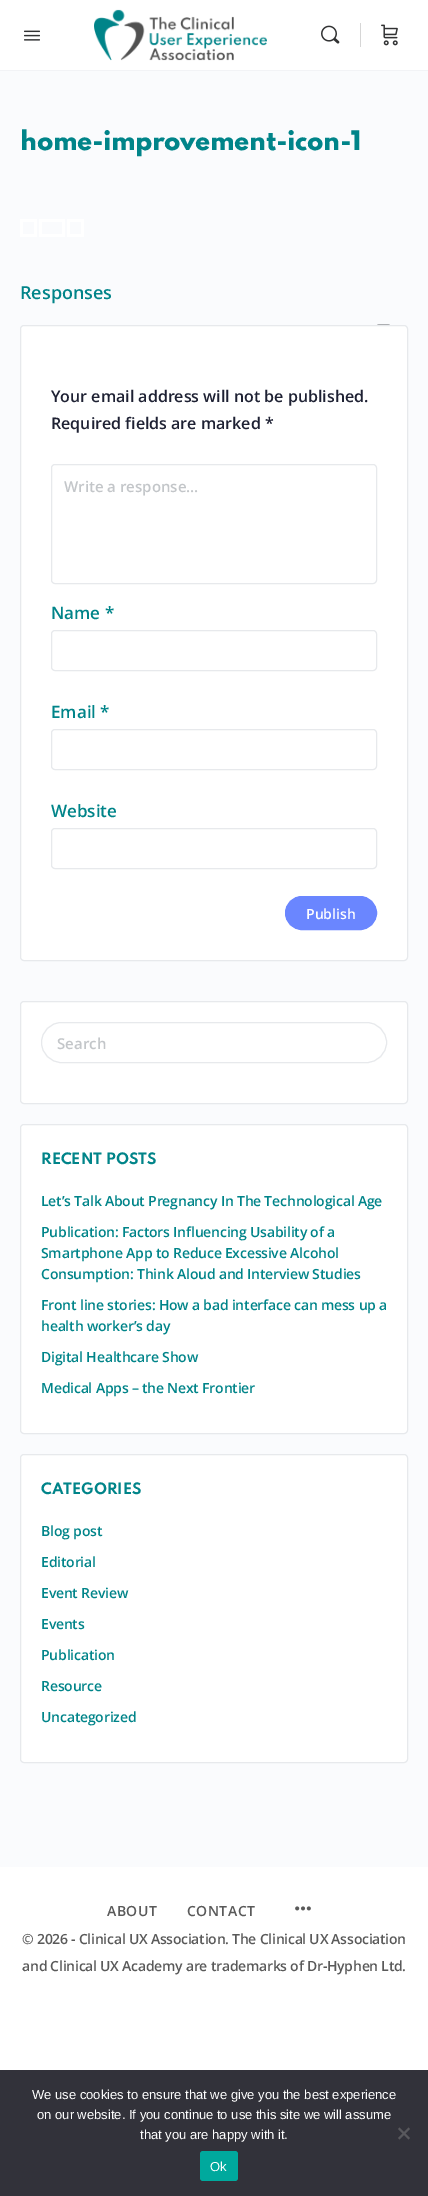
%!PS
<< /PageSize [428 2196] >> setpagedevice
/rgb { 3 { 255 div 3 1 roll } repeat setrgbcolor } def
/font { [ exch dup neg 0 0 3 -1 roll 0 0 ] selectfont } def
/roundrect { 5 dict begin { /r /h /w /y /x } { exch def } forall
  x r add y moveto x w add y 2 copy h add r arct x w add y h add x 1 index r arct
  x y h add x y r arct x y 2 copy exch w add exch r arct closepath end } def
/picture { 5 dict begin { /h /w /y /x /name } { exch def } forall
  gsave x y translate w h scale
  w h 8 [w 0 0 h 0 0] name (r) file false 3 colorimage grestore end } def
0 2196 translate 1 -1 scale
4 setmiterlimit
250 251 253 rgb
0 0 428 2196 rectfill
242 243 246 rgb
0 70 428 1 rectfill
255 255 255 rgb
0 0 428 70 rectfill
(img/1.rgb) 24 30 16 11 picture
(img/2.rgb) 94 9 173 52 picture
(img/3.rgb) 321 25 19 19 picture
214 214 214 rgb
360 23 1 24 rectfill
(img/4.rgb) 381 24 17 22 picture
(img/5.rgb) 20 219 64 18 picture
255 255 255 rgb
20.5 325.5 387 635 3.5 roundrect gsave fill grestore
231 233 236 rgb
stroke
51.5 464.5 325 119 3.5 roundrect stroke
51.5 630.5 325 40 3.5 roundrect stroke
51.5 729.5 325 40 3.5 roundrect stroke
51.5 828.5 325 40 3.5 roundrect stroke
106 134 255 rgb
285.5 896.5 91 33 16.5 roundrect gsave fill grestore
stroke
(img/6.rgb) 377 324 13 1 picture
255 255 255 rgb
20.5 1001.5 387 102 3.5 roundrect gsave fill grestore
231 233 236 rgb
stroke
41.5 1022.5 345 40 20 roundrect stroke
255 255 255 rgb
20.5 1124.5 387 309 3.5 roundrect gsave fill grestore
231 233 236 rgb
stroke
255 255 255 rgb
20.5 1454.5 387 308 3.5 roundrect gsave fill grestore
231 233 236 rgb
stroke
255 255 255 rgb
0 1867 428 203 rectfill
(img/7.rgb) 295 1906 16 5 picture
50 50 58 rgb
0 2070 428 126 rectfill
89 89 93 rgb
408.5 2127.5 moveto 410 2129 lineto 399.5 2139.5 lineto 398 2138 lineto closepath fill
398 2129 moveto 399.5 2127.5 lineto 410 2138 lineto 408.5 2139.5 lineto closepath fill
0 169 157 rgb
200 2151 38 30 3 roundrect fill
/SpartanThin-ExtraBold 24 font
0 132 137 rgb
20 150 moveto -0.5 0 (home-improvement-icon-1) ashow
/OpenSans-SemiBold 18 font
20 299 moveto (Responses) show
/OpenSans-SemiBold 16 font
30 33 51 rgb
51 402 moveto (Your email address will not be published.) show
51 429 moveto (Required fields are marked *) show
/OpenSans-SemiBold 15 font
195 198 201 rgb
64 492 moveto (Write a response...) show
/OpenSans-SemiBold 17 font
0 132 137 rgb
[
  [(Name *) 51 619]
  [(Email *) 51 718]
  [(Website) 51 817]
] { aload pop moveto show } forall
/OpenSans-SemiBold 14 font
255 255 255 rgb
306 919 moveto (Publish) show
/OpenSans-SemiBold 15 font
195 198 201 rgb
57 1049 moveto (Search) show
/SpartanThin-Bold 14 font
0 132 137 rgb
41 1164 moveto (RECENT POSTS) show
/OpenSans-SemiBold 14 font
41 1206 moveto -0.2 0 (Let’s Talk About Pregnancy In The Technological Age) ashow
41 1237 moveto -0.2 0 (Publication: Factors Influencing Usability of a) ashow
41 1258 moveto -0.2 0 (Smartphone App to Reduce Excessive Alcohol) ashow
41 1279 moveto -0.2 0 (Consumption: Think Aloud and Interview Studies) ashow
41 1310 moveto -0.2 0 (Front line stories: How a bad interface can mess up a) ashow
41 1331 moveto -0.2 0 (health worker’s day) ashow
41 1362 moveto -0.2 0 (Digital Healthcare Show) ashow
41 1393 moveto -0.2 0 (Medical Apps – the Next Frontier) ashow
/SpartanThin-Bold 14 font
41 1494 moveto (CATEGORIES) show
/OpenSans-SemiBold 14 font
41 1536 moveto -0.2 0 (Blog post) ashow
41 1567 moveto -0.2 0 (Editorial) ashow
41 1598 moveto -0.2 0 (Event Review) ashow
41 1629 moveto -0.2 0 (Events) ashow
41 1660 moveto -0.2 0 (Publication) ashow
41 1691 moveto -0.2 0 (Resource) ashow
41 1722 moveto -0.2 0 (Uncategorized) ashow
90 90 90 rgb
107 1916 moveto 0.5 0 (ABOUT) ashow
187 1916 moveto 0.5 0 (CONTACT) ashow
22 1944 moveto -0.25 0 (© 2026 - Clinical UX Association. The Clinical UX Association) ashow
22 1971 moveto -0.25 0 (and Clinical UX Academy are trademarks of Dr-Hyphen Ltd.) ashow
/LiberationSans-Regular 13 font
255 255 255 rgb
[
  [(We use cookies to ensure that we give you the best experience) 32 2099]
  [(on our website. If you continue to use this site we will assume) 37 2119]
  [(that you are happy with it.) 140 2139]
  [(Ok) 210 2171]
] { aload pop moveto show } forall
showpage
